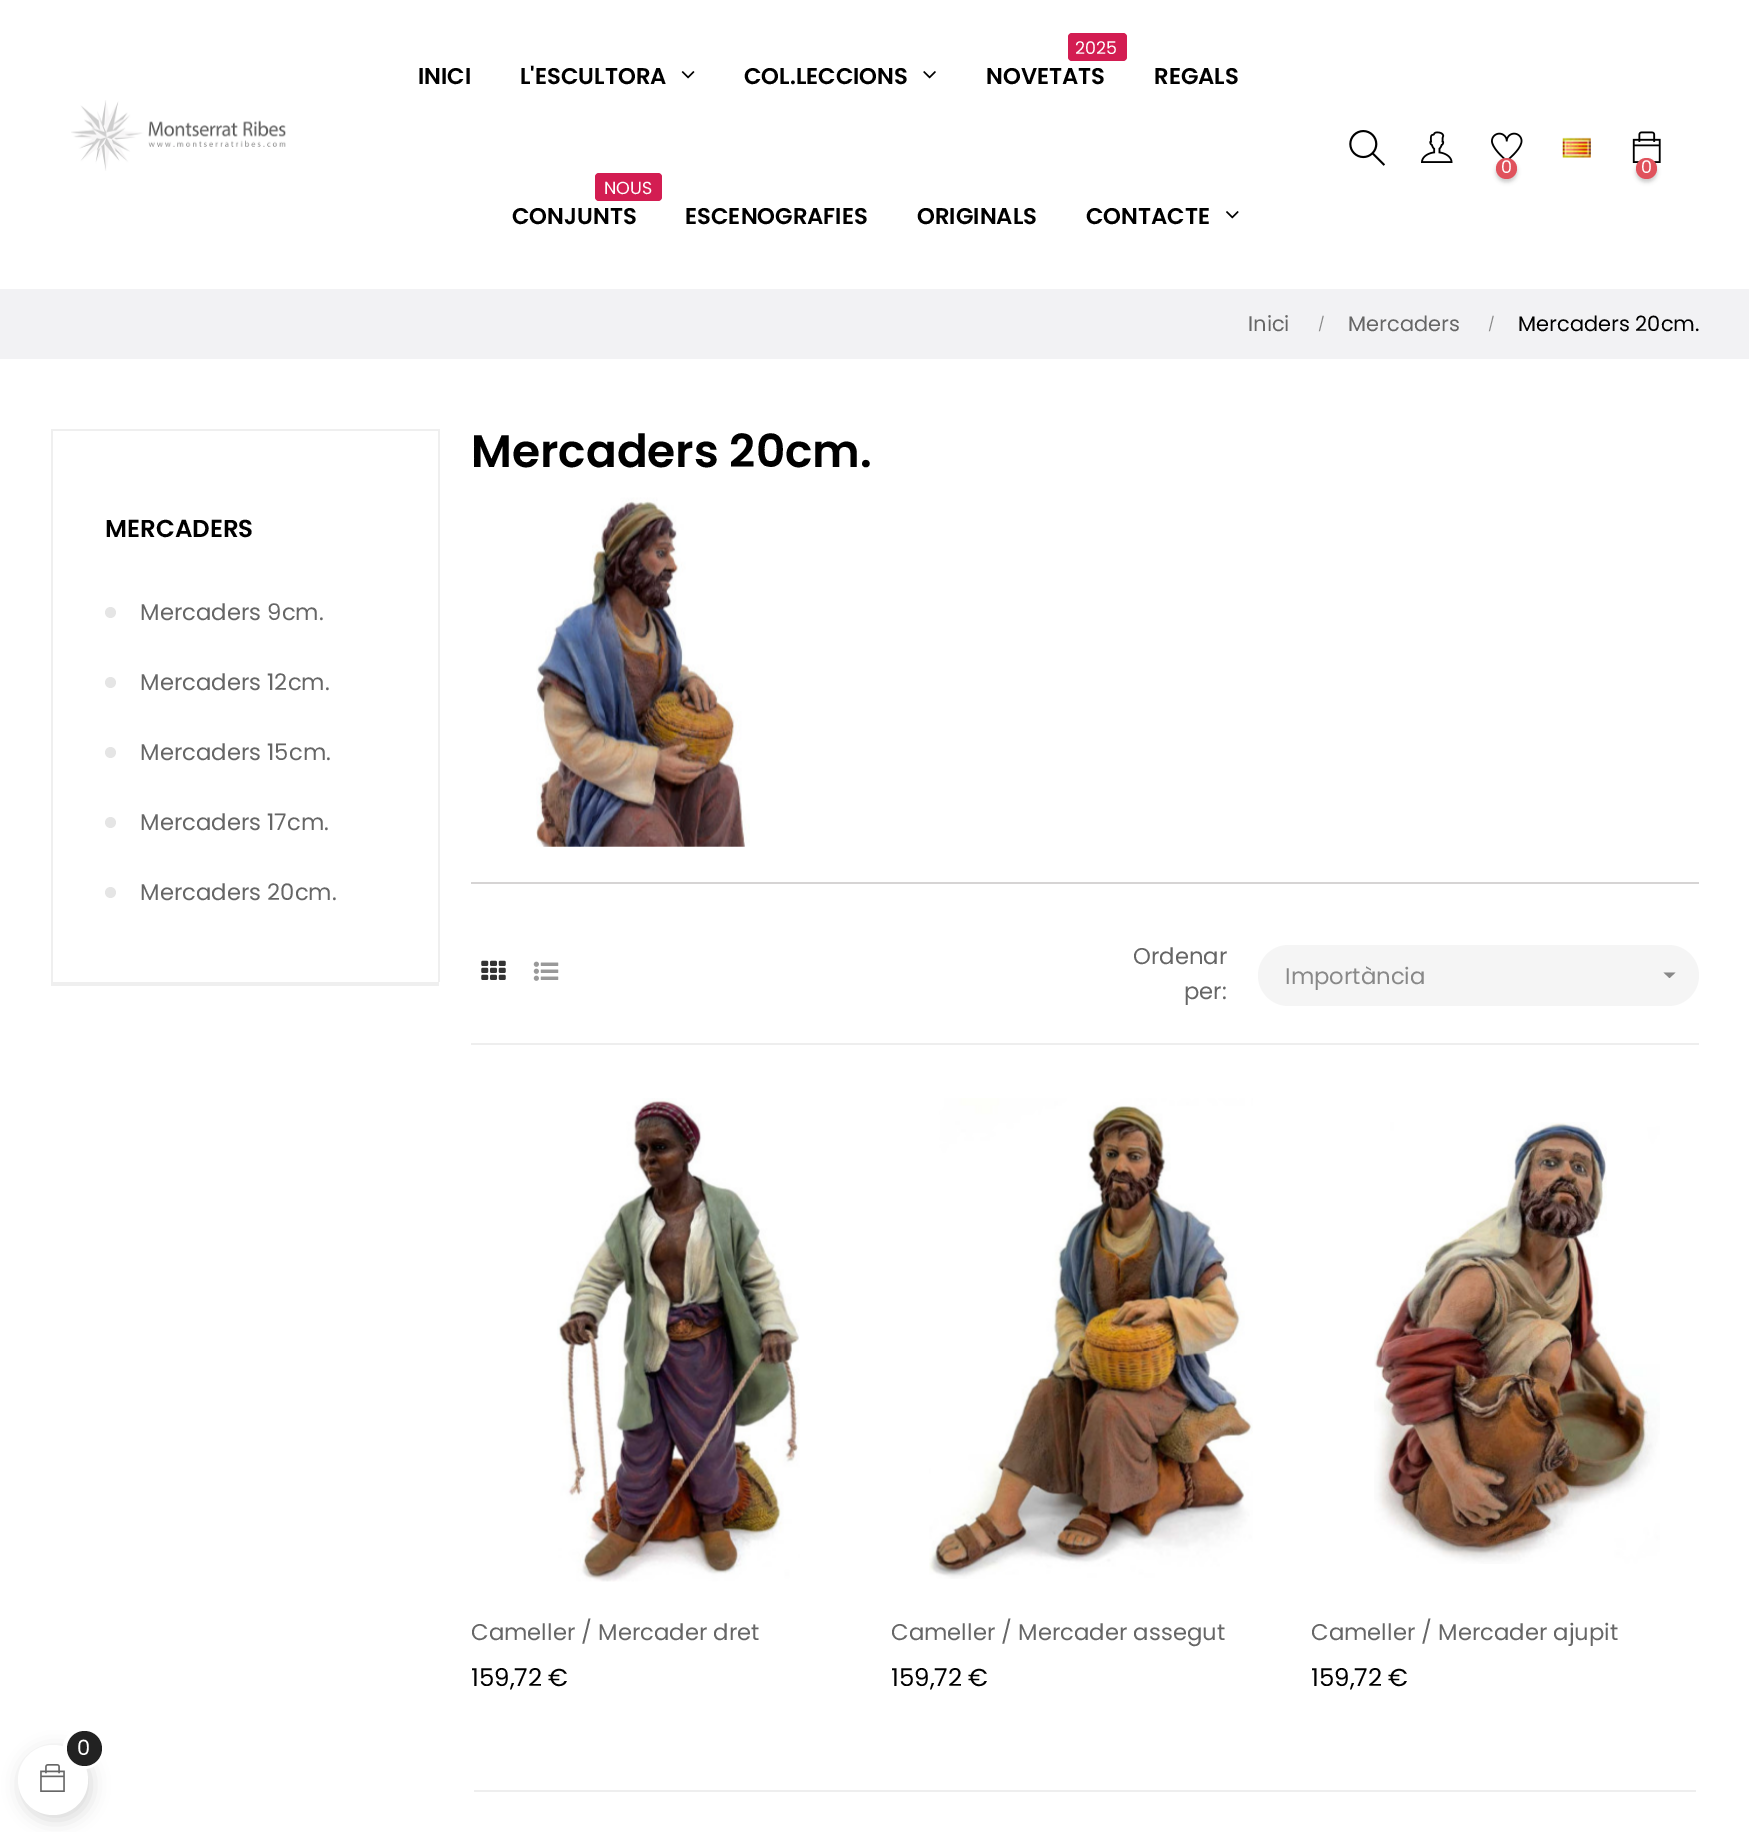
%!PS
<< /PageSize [1749 1832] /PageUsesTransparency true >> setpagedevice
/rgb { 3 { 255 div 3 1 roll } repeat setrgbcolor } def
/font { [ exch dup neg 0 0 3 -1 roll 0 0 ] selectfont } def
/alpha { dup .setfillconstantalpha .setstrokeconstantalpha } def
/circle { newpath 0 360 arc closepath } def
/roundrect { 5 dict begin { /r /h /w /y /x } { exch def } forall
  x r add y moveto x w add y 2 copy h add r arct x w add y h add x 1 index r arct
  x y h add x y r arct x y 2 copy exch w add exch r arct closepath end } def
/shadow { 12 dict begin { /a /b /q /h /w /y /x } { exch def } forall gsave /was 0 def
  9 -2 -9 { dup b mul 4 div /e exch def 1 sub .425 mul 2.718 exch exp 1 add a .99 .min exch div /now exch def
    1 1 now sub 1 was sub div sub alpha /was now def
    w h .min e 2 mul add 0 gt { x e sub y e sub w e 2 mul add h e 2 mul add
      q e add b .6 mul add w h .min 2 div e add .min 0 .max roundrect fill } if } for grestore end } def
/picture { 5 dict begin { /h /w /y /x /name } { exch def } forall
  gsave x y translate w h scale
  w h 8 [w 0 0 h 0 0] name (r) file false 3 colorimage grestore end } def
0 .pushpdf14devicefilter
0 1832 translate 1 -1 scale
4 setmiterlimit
255 255 255 rgb
0 0 1749 1832 rectfill
(img/1.rgb) 71 100 215 71 picture
(img/2.rgb) 681 71 14 8 picture
(img/3.rgb) 923 71 13 8 picture
211 29 82 rgb
1068 33 59 28 4 roundrect fill
595 173 67 28 4 roundrect fill
(img/4.rgb) 1226 211 13 8 picture
(img/5.rgb) 1349 130 36 36 picture
(img/6.rgb) 1421 131 32 32 picture
(img/7.rgb) 1562 137 29 21 picture
(img/8.rgb) 1491 132 32 27 picture
0 0 0 rgb
1496 161 21 21 10.5 2 0.2 shadow
224 82 92 rgb
1506.5 168.5 10.5 circle fill
(img/9.rgb) 1632 131 29 32 picture
0 0 0 rgb
1636 161 21 21 10.5 2 0.2 shadow
224 82 92 rgb
1646.5 168.5 10.5 circle fill
[
  [0 289 1749 70 242 242 244]
  [51 429 388 2 239 239 239]
  [438 429 2 553 239 239 239]
  [51 429 2 553 239 239 239]
] { aload pop rgb rectfill } forall
229 229 229 rgb
110.5 612.5 5.5 circle fill
110.5 682.5 5.5 circle fill
110.5 752.5 5.5 circle fill
110.5 822.5 5.5 circle fill
110.5 892.5 5.5 circle fill
239 239 239 rgb
51 982 388 4 rectfill
(img/10.rgb) 536 497 214 350 picture
214 212 212 rgb
471 882 1228 2 rectfill
238 238 238 rgb
471 1043 1228 2 rectfill
(img/11.rgb) 481 960 25 20 picture
(img/12.rgb) 533 961 26 20 picture
245 245 245 rgb
1258 945 441 61 30.5 roundrect fill
136 136 136 rgb
1663.5 972.5 moveto 1675.5 972.5 lineto 1669.5 978 lineto closepath fill
(img/13.rgb) 557 1098 243 484 picture
(img/14.rgb) 929 1098 324 481 picture
(img/15.rgb) 1374 1122 286 442 picture
238 238 238 rgb
474 1790 1222 2 rectfill
0 0 0 rgb
21 1750 70 70 35 9 0.15 shadow
255 255 255 rgb
53 1780 35 circle fill
(img/16.rgb) 40 1764 25 28 picture
4 setlinewidth
84 1748 19 circle stroke
34 34 34 rgb
84.5 1748.5 17.5 circle fill
/Poppins-SemiBold 22.75 font
0 0 0 rgb
[
  [(INICI) 418 84]
  [(L'ESCULTORA) 520 84]
  [(COL.LECCIONS) 744 84]
] { aload pop moveto show } forall
/Poppins-Regular 17.5 font
255 255 255 rgb
1075 54 moveto (2025) show
/Poppins-SemiBold 22.75 font
0 0 0 rgb
986 84 moveto (NOVETATS) show
1154 84 moveto (REGALS) show
/Poppins-Regular 17.5 font
255 255 255 rgb
604 194 moveto (NOUS) show
/Poppins-SemiBold 22.75 font
0 0 0 rgb
[
  [(CONJUNTS) 512 224]
  [(ESCENOGRAFIES) 685 224]
  [(ORIGINALS) 917 224]
  [(CONTACTE) 1086 224]
] { aload pop moveto show } forall
/Poppins-Regular 17.5 font
255 255 255 rgb
1501 173 moveto (0) show
1641 173 moveto (0) show
/Poppins-Regular 21 font
102 102 102 rgb
1248 331 moveto (Inici) show
/Poppins-Regular 14 font
136 136 136 rgb
1318 329 moveto (/) show
/Poppins-Regular 21 font
102 102 102 rgb
1348 331 moveto (Mercaders) show
/Poppins-Regular 14 font
136 136 136 rgb
1488 329 moveto (/) show
/Poppins-Regular 21 font
0 0 0 rgb
1518 331 moveto (Mercaders 20cm.) show
/Poppins-SemiBold 24.5 font
105 537 moveto (MERCADERS) show
/Poppins-Regular 22.75 font
102 102 102 rgb
[
  [(Mercaders 9cm.) 140 620]
  [(Mercaders 12cm.) 140 690]
  [(Mercaders 15cm.) 140 760]
  [(Mercaders 17cm.) 140 830]
  [(Mercaders 20cm.) 140 900]
] { aload pop moveto show } forall
/Poppins-SemiBold 45.5 font
0 0 0 rgb
471 467 moveto (Mercaders 20cm.) show
/Poppins-Regular 22.75 font
102 102 102 rgb
1133 964 moveto (Ordenar) show
1184 999 moveto (per:) show
136 136 136 rgb
1285 984 moveto (Importància) show
102 102 102 rgb
471 1640 moveto (Cameller / Mercader dret) show
/Poppins-Regular 24.5 font
0 0 0 rgb
471 1686 moveto (159,72 €) show
/Poppins-Regular 22.75 font
102 102 102 rgb
891 1640 moveto (Cameller / Mercader assegut) show
/Poppins-Regular 24.5 font
0 0 0 rgb
891 1686 moveto (159,72 €) show
/Poppins-Regular 22.75 font
102 102 102 rgb
1311 1640 moveto (Cameller / Mercader ajupit) show
/Poppins-Regular 24.5 font
0 0 0 rgb
1311 1686 moveto (159,72 €) show
/Poppins-Regular 21 font
255 255 255 rgb
77 1755 moveto (0) show
.poppdf14devicefilter showpage
